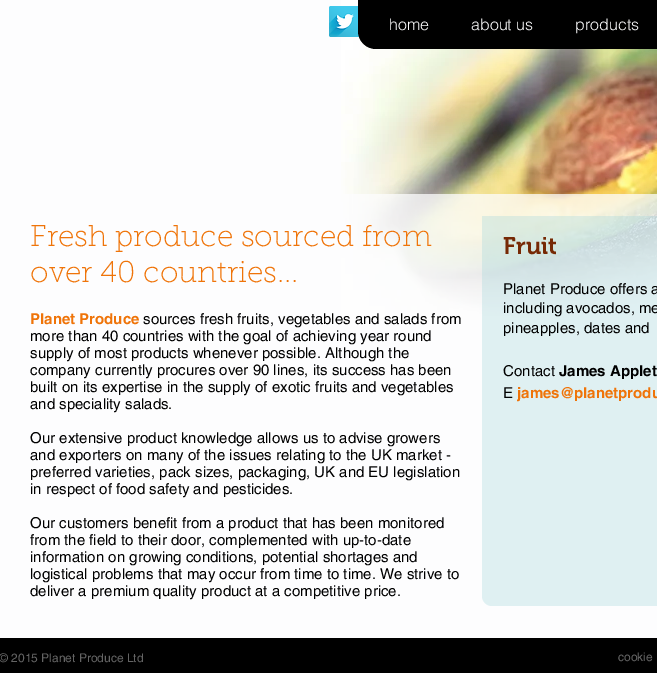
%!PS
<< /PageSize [657 673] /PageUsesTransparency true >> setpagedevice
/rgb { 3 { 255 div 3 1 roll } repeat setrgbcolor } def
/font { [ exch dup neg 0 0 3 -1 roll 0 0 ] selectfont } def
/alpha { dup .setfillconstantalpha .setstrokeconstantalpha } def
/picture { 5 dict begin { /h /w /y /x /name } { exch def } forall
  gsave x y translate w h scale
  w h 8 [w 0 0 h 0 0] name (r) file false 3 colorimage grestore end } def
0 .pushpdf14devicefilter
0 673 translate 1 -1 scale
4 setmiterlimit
253 253 254 rgb
0 0 657 673 rectfill
(img/2.rgb) 341 0 316 320 picture
(img/1.rgb) 329 6 30 31 picture
0 0 0 rgb
358 -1 moveto 657 -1 lineto 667 -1 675 7 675 17 curveto 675 49 lineto 376 49 lineto 366 49 358 41 358 31 curveto closepath fill
0.75 alpha
253 253 254 rgb
0 194 moveto 657 194 lineto 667 194 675 202 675 212 curveto 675 638 lineto 18 638 lineto 8 638 0 630 0 620 curveto closepath fill
0.35 alpha
167 215 219 rgb
482 216 moveto 657 216 lineto 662.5 216 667 220.5 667 226 curveto 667 606 lineto 492 606 lineto 486.5 606 482 601.5 482 596 curveto closepath fill
1 alpha
0 0 0 rgb
0 638 657 35 rectfill
/helvetica-Light 16 font
253 253 254 rgb
[
  [(home) 389 30]
  [(about us) 471 30]
  [(products) 575 30]
] { aload pop moveto show } forall
/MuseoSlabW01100-Thin 30 font
239 116 9 rgb
30 246 moveto (Fresh produce sourced from) show
30 282 moveto (over 40 countries...) show
/helvetica-Bold 15 font
30 324 moveto (Planet Produce) show
/helvetica-Regular 15 font
0 0 0 rgb
[
  [(sources fresh fruits, vegetables and salads from) 143 324]
  [(more than 40 countries with the goal of achieving year round) 30 341]
  [(supply of most products whenever possible. Although the) 30 358]
  [(company currently procures over 90 lines, its success has been) 30 375]
  [(built on its expertise in the supply of exotic fruits and vegetables) 30 392]
  [(and speciality salads.) 30 409]
  [(Our extensive product knowledge allows us to advise growers) 30 443]
  [(and exporters on many of the issues relating to the UK market -) 30 460]
  [(preferred varieties, pack sizes, packaging, UK and EU legislation) 30 477]
  [(in respect of food safety and pesticides.) 30 494]
  [(Our customers benefit from a product that has been monitored) 30 528]
  [(from the field to their door, complemented with up-to-date) 30 545]
  [(information on growing conditions, potential shortages and) 30 562]
  [(logistical problems that may occur from time to time. We strive to) 30 579]
  [(deliver a premium quality product at a competitive price.) 30 596]
] { aload pop moveto show } forall
/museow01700-SemiBold 24 font
118 41 5 rgb
503 254 moveto (Fruit) show
/helvetica-Regular 15 font
0 0 0 rgb
[
  [(Planet Produce offers a) 503 294]
  [(including avocados, me) 503 313]
  [(pineapples, dates and) 503 333]
  [(Contact) 503 376]
] { aload pop moveto show } forall
/helvetica-Bold 15 font
559 376 moveto (James Applet) show
/helvetica-Regular 15 font
503 398 moveto (E) show
/helvetica-Bold 15 font
239 116 9 rgb
517 398 moveto (james@planetprodu) show
/helvetica-Regular 12 font
100 100 100 rgb
-1 662 moveto (© 2015 Planet Produce Ltd) show
618 661 moveto (cookie) show
.poppdf14devicefilter showpage
